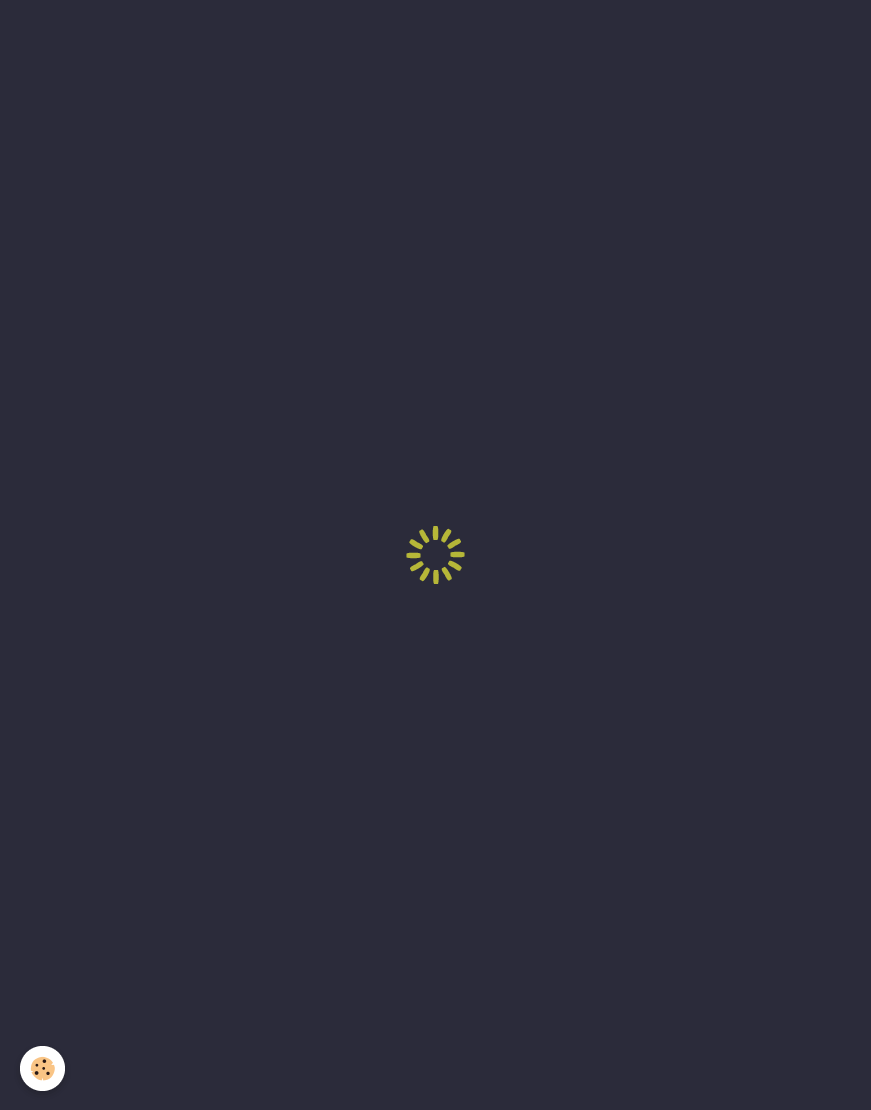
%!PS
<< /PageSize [871 1110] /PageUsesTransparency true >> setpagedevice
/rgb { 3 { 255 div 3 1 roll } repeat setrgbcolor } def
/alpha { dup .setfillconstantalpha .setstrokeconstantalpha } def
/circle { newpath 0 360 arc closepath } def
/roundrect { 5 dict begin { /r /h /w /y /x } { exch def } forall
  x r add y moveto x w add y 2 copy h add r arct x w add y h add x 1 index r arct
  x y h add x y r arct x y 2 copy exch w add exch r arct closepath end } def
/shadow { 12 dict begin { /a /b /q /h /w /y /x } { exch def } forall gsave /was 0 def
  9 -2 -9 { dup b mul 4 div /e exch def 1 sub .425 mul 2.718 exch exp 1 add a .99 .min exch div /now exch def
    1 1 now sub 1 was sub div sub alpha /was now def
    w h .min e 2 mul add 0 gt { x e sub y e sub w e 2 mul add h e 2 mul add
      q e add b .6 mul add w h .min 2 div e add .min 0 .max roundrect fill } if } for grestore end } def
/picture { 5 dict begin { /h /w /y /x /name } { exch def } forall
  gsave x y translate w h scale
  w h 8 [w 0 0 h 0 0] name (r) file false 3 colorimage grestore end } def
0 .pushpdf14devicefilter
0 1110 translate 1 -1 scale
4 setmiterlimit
43 43 58 rgb
0 0 871 1110 rectfill
182 183 56 rgb
434 526 moveto 437 526 lineto 438.5 527 438 532 438 533 curveto 438 534 438.5 539 437 540 curveto 434 540 lineto 432.5 540 432.5 526 434 526 curveto closepath 448.5 529 moveto 451 530.5 lineto 452 532 448.5 536 448 537 curveto 447.5 538 445.5 542.5 444 542.5 curveto 441.5 541 lineto 440 540 447 528 448.5 529 curveto closepath fill
459.5 539 moveto 461 541.5 lineto 461 543 456.5 545 455.5 545.5 curveto 454.5 546 450.5 549.5 449 548.5 curveto 447.5 546 lineto 447 544.5 459 537.5 459.5 539 curveto closepath 464.5 553 moveto 464.5 556 lineto 463.5 557.5 458.5 557 457.5 557 curveto 456.5 557 451.5 557.5 450.5 556 curveto 450.5 553 lineto 450.5 551.5 464.5 551.5 464.5 553 curveto closepath 461.5 568 moveto 460 570.5 lineto 458.5 571.5 454.5 568 453.5 567.5 curveto 452.5 567 448 565 448 563.5 curveto 449.5 561 lineto 450.5 559.5 462.5 566.5 461.5 568 curveto closepath fill
451.5 579 moveto 449 580.5 lineto 447.5 580.5 445.5 576 445 575 curveto 444.5 574 441 570 442 568.5 curveto 444.5 567 lineto 446 566.5 453 578.5 451.5 579 curveto closepath 437.5 584 moveto 434.5 584 lineto 433 583 433.5 578 433.5 577 curveto 433.5 576 433 571 434.5 570 curveto 437.5 570 lineto 439 570 439 584 437.5 584 curveto closepath 422.5 581 moveto 420 579.5 lineto 419 578 422.5 574 423 573 curveto 423.5 572 425.5 567.5 427 567.5 curveto 429.5 569 lineto 431 570 424 582 422.5 581 curveto closepath fill
411.5 571 moveto 410 568.5 lineto 410 567 414.5 565 415.5 564.5 curveto 416.5 564 420.5 560.5 422 561.5 curveto 423.5 564 lineto 424 565.5 412 572.5 411.5 571 curveto closepath 406.5 557 moveto 406.5 554 lineto 407.5 552.5 412.5 553 413.5 553 curveto 414.5 553 419.5 552.5 420.5 554 curveto 420.5 557 lineto 420.5 558.5 406.5 558.5 406.5 557 curveto closepath 409.5 542 moveto 411 539.5 lineto 412.5 538.5 416.5 542 417.5 542.5 curveto 418.5 543 423 545 423 546.5 curveto 421.5 549 lineto 420.5 550.5 408.5 543.5 409.5 542 curveto closepath fill
419.5 531 moveto 422 529.5 lineto 423.5 529.5 425.5 534 426 535 curveto 426.5 536 430 540 429 541.5 curveto 426.5 543 lineto 425 543.5 418 531.5 419.5 531 curveto closepath fill
0 0 0 rgb
20 1049 45 45 22.5 5 0.24 shadow
255 255 255 rgb
42.5 1068.5 22.5 circle fill
(img/1.rgb) 30 1056 25 25 picture
.poppdf14devicefilter showpage
